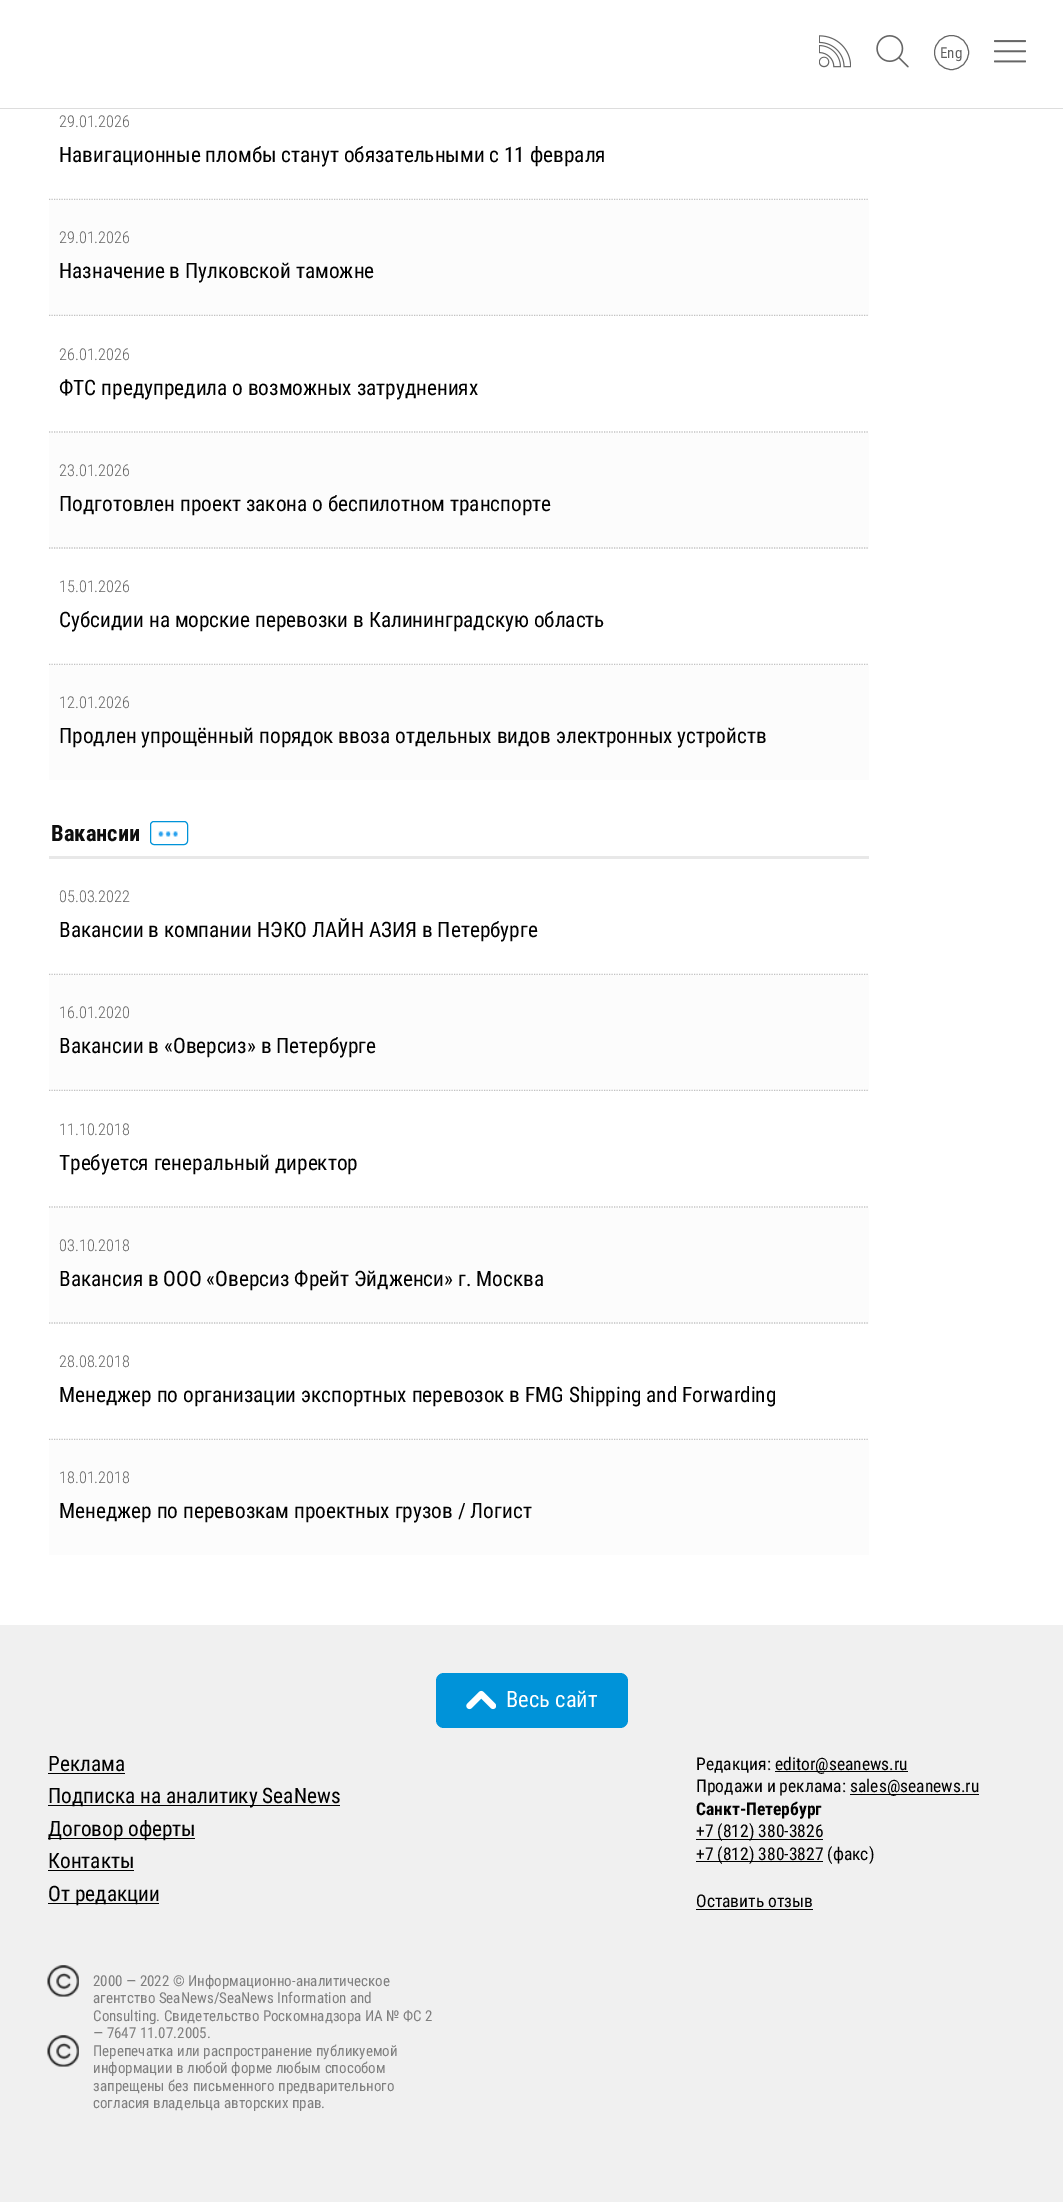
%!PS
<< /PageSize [1063 2202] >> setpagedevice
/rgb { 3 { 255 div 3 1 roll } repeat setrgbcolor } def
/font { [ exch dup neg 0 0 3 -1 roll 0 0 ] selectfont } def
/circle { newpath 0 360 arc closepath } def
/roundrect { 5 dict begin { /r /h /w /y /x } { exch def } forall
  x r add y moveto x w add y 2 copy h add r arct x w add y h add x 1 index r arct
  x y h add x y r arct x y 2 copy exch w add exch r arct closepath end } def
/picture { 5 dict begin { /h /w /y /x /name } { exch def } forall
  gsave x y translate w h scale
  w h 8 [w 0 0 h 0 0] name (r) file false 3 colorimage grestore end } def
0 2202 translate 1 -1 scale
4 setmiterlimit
255 255 255 rgb
0 0 1063 2202 rectfill
221 221 221 rgb
0 108 1063 1 rectfill
(img/1.rgb) 819 35 32 33 picture
(img/2.rgb) 876 35 33 33 picture
102 102 102 rgb
951.5 52.5 17 circle stroke
(img/3.rgb) 994 40 32 23 picture
194 194 194 rgb
1.2 setlinewidth
[1.25 1.25] 0 setdash
49 199.5 moveto 869 199.5 lineto stroke
252 252 252 rgb
49 200 820 116 rectfill
194 194 194 rgb
49 315.5 moveto 869 315.5 lineto stroke
255 255 255 rgb
49 316 819 1 rectfill
194 194 194 rgb
49 432 moveto 869 432 lineto stroke
252 252 252 rgb
49 433 820 116 rectfill
194 194 194 rgb
49 548 moveto 869 548 lineto stroke
49 664.5 moveto 869 664.5 lineto stroke
252 252 252 rgb
49 665 820 115 rectfill
232 232 232 rgb
49 856 820 3 rectfill
0 147 217 rgb
1 setlinewidth
[] 0 setdash
150.5 821.5 37 23 3.5 roundrect stroke
(img/4.rgb) 158 831 20 6 picture
194 194 194 rgb
1.2 setlinewidth
[1.25 1.25] 0 setdash
49 974.5 moveto 869 974.5 lineto stroke
252 252 252 rgb
49 975 820 116 rectfill
194 194 194 rgb
49 1090.5 moveto 869 1090.5 lineto stroke
255 255 255 rgb
49 1091 819 1 rectfill
194 194 194 rgb
49 1207 moveto 869 1207 lineto stroke
252 252 252 rgb
49 1208 820 116 rectfill
194 194 194 rgb
49 1323 moveto 869 1323 lineto stroke
49 1439.5 moveto 869 1439.5 lineto stroke
252 252 252 rgb
49 1440 820 115 rectfill
240 240 240 rgb
0 1625 1063 577 rectfill
0 147 217 rgb
436 1673 192 55 8 roundrect fill
(img/5.rgb) 466 1690 30 20 picture
[
  [48 1773 77 1 0 0 0]
  [48 1805 292 1 0 0 0]
  [48 1838 147 1 0 0 0]
  [48 1870 86 1 0 0 0]
  [48 1903 111 1 0 0 0]
  [775 1771 133 1 0 0 0]
  [850 1794 129 1 0 0 0]
  [696 1839 127 1 0 0 0]
  [696 1861 127 1 0 0 0]
  [696 1909 117 1 0 0 0]
] { aload pop rgb rectfill } forall
(img/6.rgb) 47 1965 32 32 picture
(img/6.rgb) 47 2035 32 32 picture
/RobotoCondensed-Regular 15 font
97 97 97 rgb
940 58 moveto (Eng) show
/RobotoCondensed-Light 16.25 font
59 127 moveto (29.01.2026) show
/RobotoCondensed-Regular 21.25 font
0 0 0 rgb
59 162 moveto (Навигационные пломбы станут обязательными с 11 февраля) show
/RobotoCondensed-Light 16.25 font
97 97 97 rgb
59 243 moveto (29.01.2026) show
/RobotoCondensed-Regular 21.25 font
0 0 0 rgb
59 278 moveto (Назначение в Пулковской таможне) show
/RobotoCondensed-Light 16.25 font
97 97 97 rgb
59 360 moveto (26.01.2026) show
/RobotoCondensed-Regular 21.25 font
0 0 0 rgb
59 395 moveto (ФТС предупредила о возможных затруднениях) show
/RobotoCondensed-Light 16.25 font
97 97 97 rgb
59 476 moveto (23.01.2026) show
/RobotoCondensed-Regular 21.25 font
0 0 0 rgb
59 511 moveto (Подготовлен проект закона о беспилотном транспорте) show
/RobotoCondensed-Light 16.25 font
97 97 97 rgb
59 592 moveto (15.01.2026) show
/RobotoCondensed-Regular 21.25 font
0 0 0 rgb
59 627 moveto (Субсидии на морские перевозки в Калининградскую область) show
/RobotoCondensed-Light 16.25 font
97 97 97 rgb
59 708 moveto (12.01.2026) show
/RobotoCondensed-Regular 21.25 font
0 0 0 rgb
59 743 moveto (Продлен упрощённый порядок ввоза отдельных видов электронных устройств) show
/RobotoCondensed-Bold 22.5 font
14 14 14 rgb
51 841 moveto (Вакансии) show
/RobotoCondensed-Light 16.25 font
97 97 97 rgb
59 902 moveto (05.03.2022) show
/RobotoCondensed-Regular 21.25 font
0 0 0 rgb
59 937 moveto (Вакансии в компании НЭКО ЛАЙН АЗИЯ в Петербурге) show
/RobotoCondensed-Light 16.25 font
97 97 97 rgb
59 1018 moveto (16.01.2020) show
/RobotoCondensed-Regular 21.25 font
0 0 0 rgb
59 1053 moveto (Вакансии в «Оверсиз» в Петербурге) show
/RobotoCondensed-Light 16.25 font
97 97 97 rgb
59 1135 moveto (11.10.2018) show
/RobotoCondensed-Regular 21.25 font
0 0 0 rgb
59 1170 moveto (Требуется генеральный директор) show
/RobotoCondensed-Light 16.25 font
97 97 97 rgb
59 1251 moveto (03.10.2018) show
/RobotoCondensed-Regular 21.25 font
0 0 0 rgb
59 1286 moveto (Вакансия в ООО «Оверсиз Фрейт Эйдженси» г. Москва) show
/RobotoCondensed-Light 16.25 font
97 97 97 rgb
59 1367 moveto (28.08.2018) show
/RobotoCondensed-Regular 21.25 font
0 0 0 rgb
59 1402 moveto (Менеджер по организации экспортных перевозок в FMG Shipping and Forwarding) show
/RobotoCondensed-Light 16.25 font
97 97 97 rgb
59 1483 moveto (18.01.2018) show
/RobotoCondensed-Regular 21.25 font
0 0 0 rgb
59 1518 moveto (Менеджер по перевозкам проектных грузов / Логист) show
/RobotoCondensed-Regular 22.5 font
255 255 255 rgb
506 1707 moveto (Весь сайт) show
/RobotoCondensed-Regular 21.25 font
0 0 0 rgb
[
  [(Реклама) 48 1771]
  [(Подписка на аналитику SeaNews) 48 1803]
  [(Договор оферты) 48 1836]
  [(Контакты) 48 1868]
  [(От редакции) 48 1901]
] { aload pop moveto show } forall
/RobotoCondensed-Regular 17.5 font
[
  [(Редакция:) 696 1770]
  [(editor@seanews.ru) 775 1770]
  [(Продажи и реклама:) 696 1792]
  [(sales@seanews.ru) 850 1792]
] { aload pop moveto show } forall
/RobotoCondensed-Bold 17.5 font
696 1815 moveto (Санкт-Петербург) show
/RobotoCondensed-Regular 17.5 font
[
  [(+7 \(812\) 380-3826) 696 1837]
  [(+7 \(812\) 380-3827 \(факс\)) 696 1860]
  [(Оставить отзыв) 696 1907]
] { aload pop moveto show } forall
/RobotoCondensed-Regular 15 font
127 127 127 rgb
[
  [(2000 — 2022 © Информационно-аналитическое) 93 1986]
  [(агентство SeaNews/SeaNews Information and) 93 2003]
  [(Consulting. Свидетельство Роскомнадзора ИА № ФС 2) 93 2021]
  [(— 7647 11.07.2005.) 93 2038]
  [(Перепечатка или распространение публикуемой) 93 2056]
  [(информации в любой форме любым способом) 93 2073]
  [(запрещены без письменного предварительного) 93 2091]
  [(согласия владельца авторских прав.) 93 2108]
] { aload pop moveto show } forall
showpage
